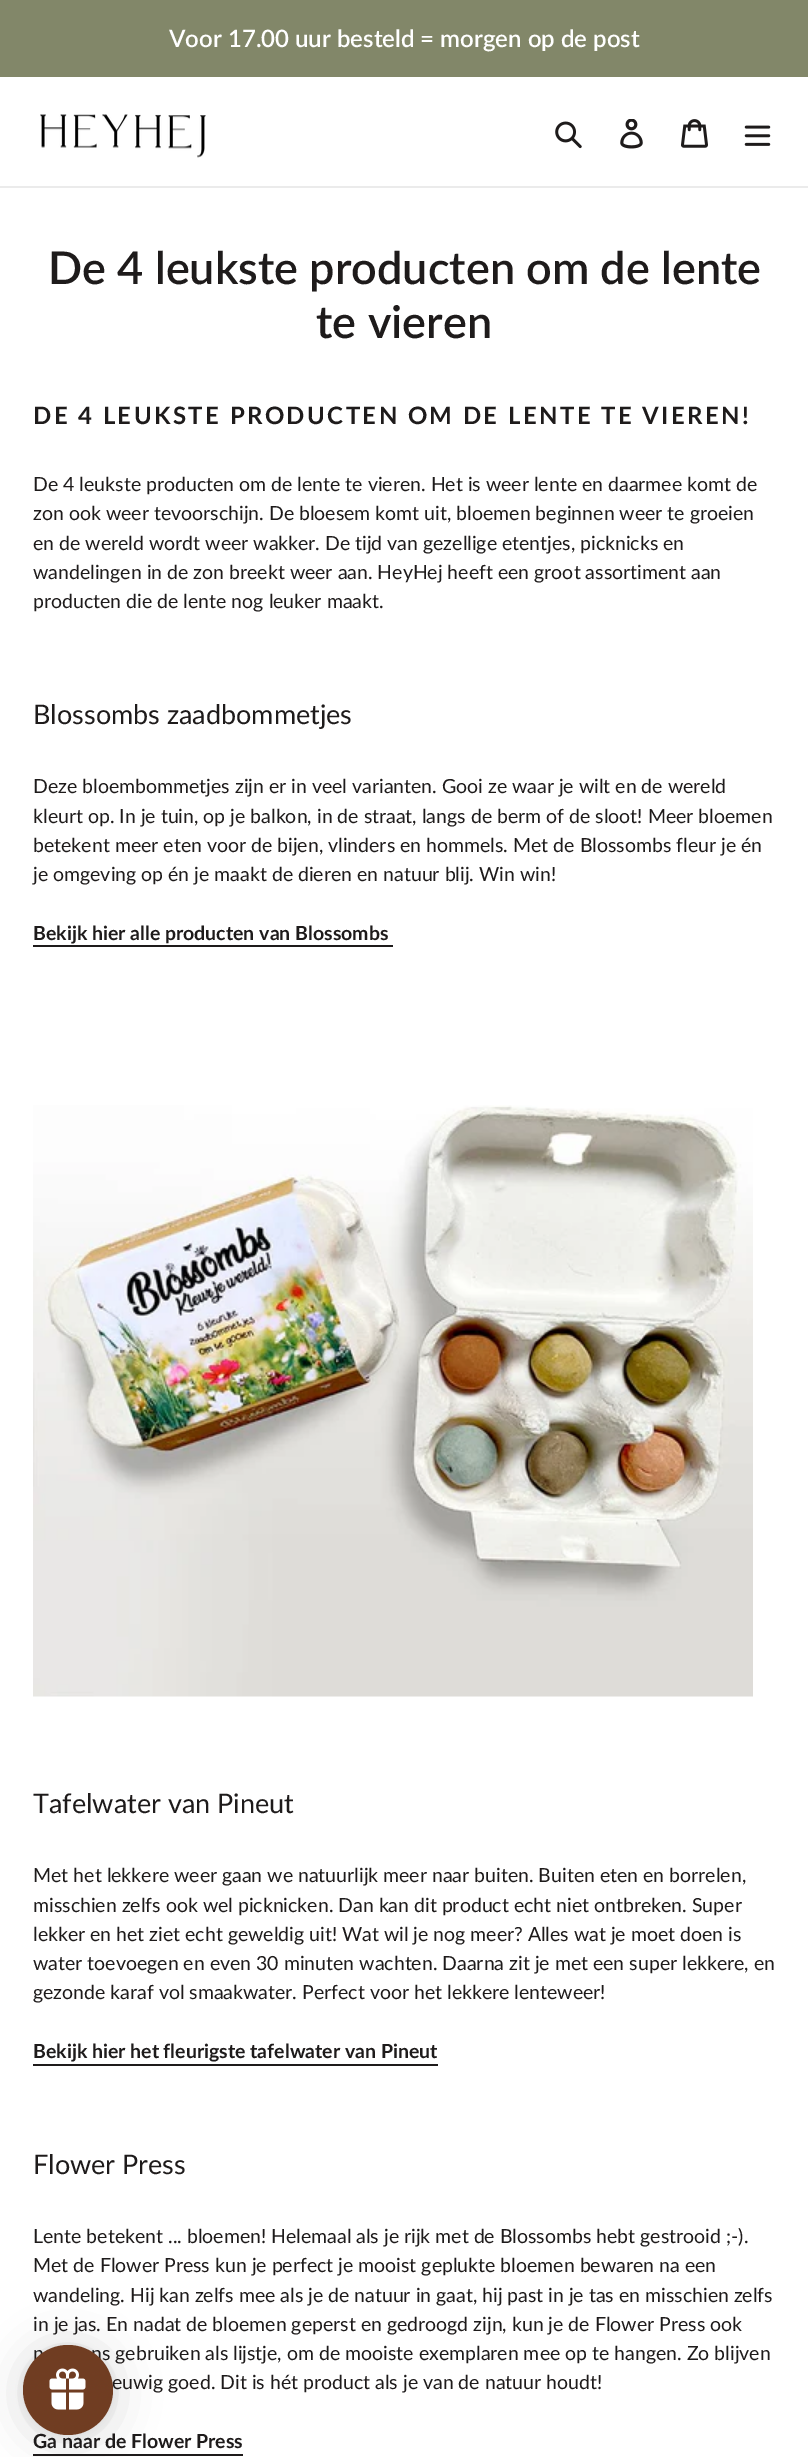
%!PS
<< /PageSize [808 2457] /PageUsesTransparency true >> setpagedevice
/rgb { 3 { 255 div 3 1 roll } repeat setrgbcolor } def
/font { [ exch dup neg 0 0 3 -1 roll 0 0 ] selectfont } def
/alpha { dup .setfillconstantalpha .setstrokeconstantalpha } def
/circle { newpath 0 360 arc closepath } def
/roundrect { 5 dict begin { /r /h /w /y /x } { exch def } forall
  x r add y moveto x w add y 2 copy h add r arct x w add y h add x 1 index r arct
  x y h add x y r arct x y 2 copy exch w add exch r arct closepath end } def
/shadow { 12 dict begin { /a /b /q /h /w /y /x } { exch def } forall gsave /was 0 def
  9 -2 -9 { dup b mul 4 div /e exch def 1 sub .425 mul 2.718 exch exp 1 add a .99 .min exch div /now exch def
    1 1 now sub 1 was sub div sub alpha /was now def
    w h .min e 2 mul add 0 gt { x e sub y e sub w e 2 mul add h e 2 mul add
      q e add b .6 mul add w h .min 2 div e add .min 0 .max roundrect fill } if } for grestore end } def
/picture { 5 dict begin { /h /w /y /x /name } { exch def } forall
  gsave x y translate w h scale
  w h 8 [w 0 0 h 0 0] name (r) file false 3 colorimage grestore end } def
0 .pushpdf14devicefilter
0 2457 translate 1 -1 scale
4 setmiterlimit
255 255 255 rgb
0 0 808 2457 rectfill
130 135 105 rgb
0 0 808 77 rectfill
235 235 235 rgb
0 186 808 2 rectfill
(img/1.rgb) 40 114 166 44 picture
(img/2.rgb) 555 121 27 28 picture
(img/3.rgb) 620 119 23 30 picture
(img/4.rgb) 681 119 27 29 picture
(img/5.rgb) 744 125 27 21 picture
30 27 27 rgb
33 945 360 2 rectfill
(img/6.rgb) 33 1105 720 592 picture
33 2064 405 2 rectfill
33 2454 210 2 rectfill
0 0 0 rgb
23 2348 90 90 45 22.5 0.15 shadow
23 2346 90 90 45 4.5 0.05 shadow
/Lato-SemiBold 24 font
255 255 255 rgb
169 47 moveto (Voor 17.00 uur besteld = morgen op de post) show
/Lato-SemiBold 45 font
30 27 27 rgb
48 284 moveto (De 4 leukste producten om de lente) show
316 338 moveto (te vieren) show
/Lato-Bold 24 font
33 424 moveto 2.4 0 (DE 4 LEUKSTE PRODUCTEN OM DE LENTE TE VIEREN!) ashow
/Lato-Regular 19.5 font
[
  [(De 4 leukste producten om de lente te vieren. Het is weer lente en daarmee komt de) 33 491]
  [(zon ook weer tevoorschijn. De bloesem komt uit, bloemen beginnen weer te groeien) 33 520]
  [(en de wereld wordt weer wakker. De tijd van gezellige etentjes, picknicks en) 33 550]
  [(wandelingen in de zon breekt weer aan. HeyHej heeft een groot assortiment aan) 33 579]
  [(producten die de lente nog leuker maakt.) 33 608]
] { aload pop moveto show } forall
/Lato-Regular 27 font
33 724 moveto (Blossombs zaadbommetjes) show
/Lato-Regular 19.5 font
[
  [(Deze bloembommetjes zijn er in veel varianten. Gooi ze waar je wilt en de wereld) 33 793]
  [(kleurt op. In je tuin, op je balkon, in de straat, langs de berm of de sloot! Meer bloemen) 33 823]
  [(betekent meer eten voor de bijen, vlinders en hommels. Met de Blossombs fleur je én) 33 852]
  [(je omgeving op én je maakt de dieren en natuur blij. Win win!) 33 881]
] { aload pop moveto show } forall
/Lato-Bold 19.5 font
33 940 moveto (Bekijk hier alle producten van Blossombs) show
/Lato-Regular 27 font
33 1813 moveto (Tafelwater van Pineut) show
/Lato-Regular 19.5 font
[
  [(Met het lekkere weer gaan we natuurlijk meer naar buiten. Buiten eten en borrelen,) 33 1882]
  [(misschien zelfs ook wel picknicken. Dan kan dit product echt niet ontbreken. Super) 33 1912]
  [(lekker en het ziet echt geweldig uit! Wat wil je nog meer? Alles wat je moet doen is) 33 1941]
  [(water toevoegen en even 30 minuten wachten. Daarna zit je met een super lekkere, en) 33 1970]
  [(gezonde karaf vol smaakwater. Perfect voor het lekkere lenteweer!) 33 1999]
] { aload pop moveto show } forall
/Lato-Bold 19.5 font
33 2058 moveto (Bekijk hier het fleurigste tafelwater van Pineut) show
/Lato-Regular 27 font
33 2174 moveto (Flower Press) show
/Lato-Regular 19.5 font
[
  [(Lente betekent ... bloemen! Helemaal als je rijk met de Blossombs hebt gestrooid ;-\).) 33 2243]
  [(Met de Flower Press kun je perfect je mooist geplukte bloemen bewaren na een) 33 2272]
  [(wandeling. Hij kan zelfs mee als je de natuur in gaat, hij past in je tas en misschien zelfs) 33 2302]
  [(in je jas. En nadat de bloemen geperst en gedroogd zijn, kun je de Flower Press ook) 33 2331]
  [(n) 33 2360]
  [(ns gebruiken als lijstje, om de mooiste exemplaren mee op te hangen. Zo blijven) 91 2360]
  [(euwig goed. Dit is hét product als je van de natuur houdt!) 112 2389]
] { aload pop moveto show } forall
/Lato-Bold 19.5 font
33 2448 moveto (Ga naar de Flower Press) show
112 61 34 rgb
68 2390 45 circle fill
(img/7.rgb) 49 2368 37 42 picture
.poppdf14devicefilter showpage
